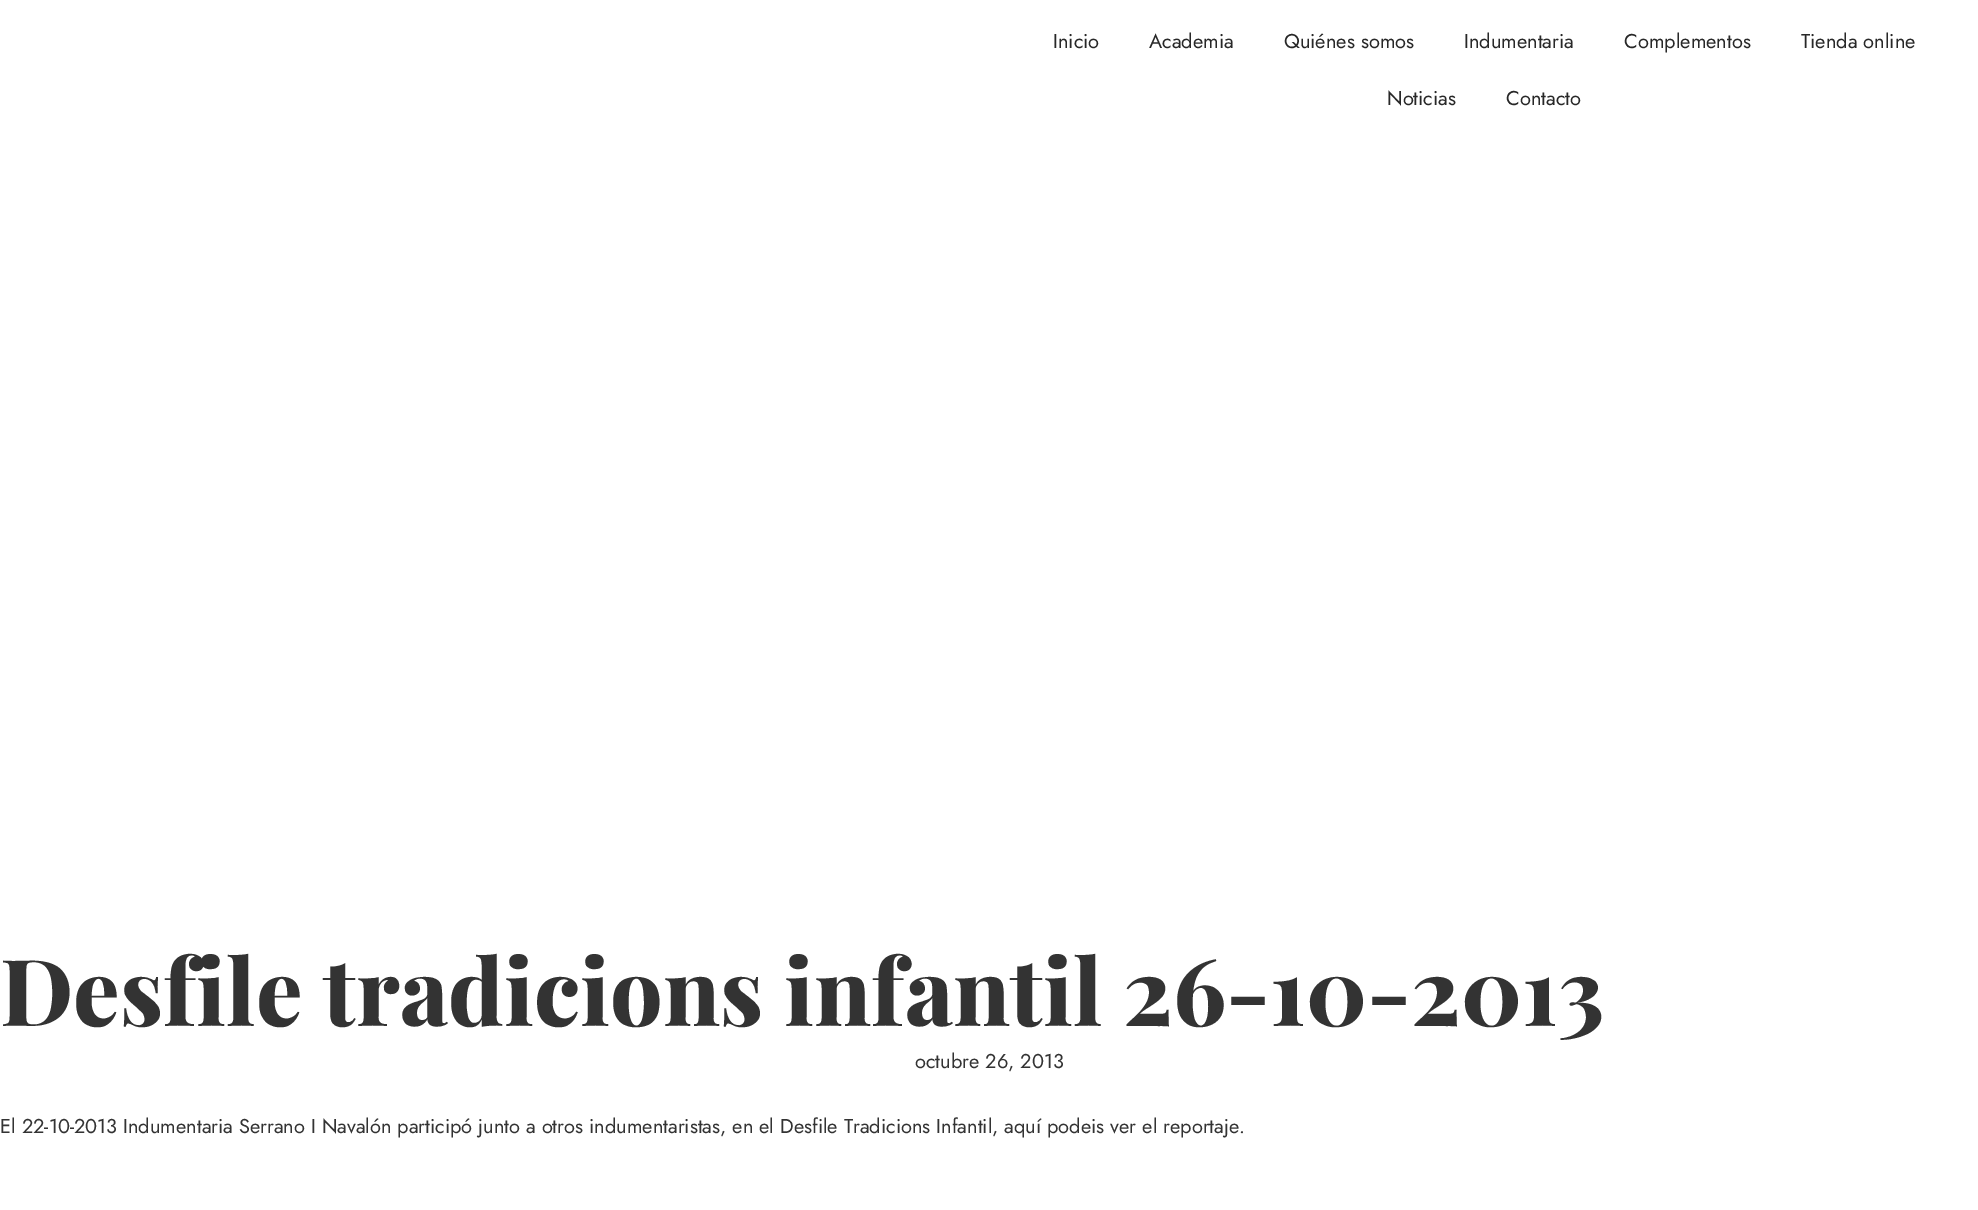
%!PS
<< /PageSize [1978 1210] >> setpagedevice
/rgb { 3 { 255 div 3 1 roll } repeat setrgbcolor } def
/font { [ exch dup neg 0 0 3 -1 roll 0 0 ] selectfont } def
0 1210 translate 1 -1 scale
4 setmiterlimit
255 255 255 rgb
0 0 1978 1210 rectfill
/Jost-Regular 20 font
40 40 40 rgb
[
  [(Inicio) 1053 48]
  [(Academia) 1149 48]
  [(Quiénes somos) 1284 48]
  [(Indumentaria) 1464 48]
  [(Complementos) 1624 48]
  [(Tienda online) 1801 48]
  [(Noticias) 1387 105]
  [(Contacto) 1506 105]
] { aload pop moveto show } forall
/PlayfairDisplay-ExtraBold 92.5 font
51 51 51 rgb
0 1026 moveto (Desfile tradicions infantil 26-10-2013) show
/Jost-Regular 20 font
915 1068 moveto (octubre 26, 2013) show
0 1133 moveto (El 22-10-2013 Indumentaria Serrano I Navalón participó junto a otros indumentaristas, en el Desfile Tradicions Infantil, aquí podeis ver el reportaje.) show
showpage
